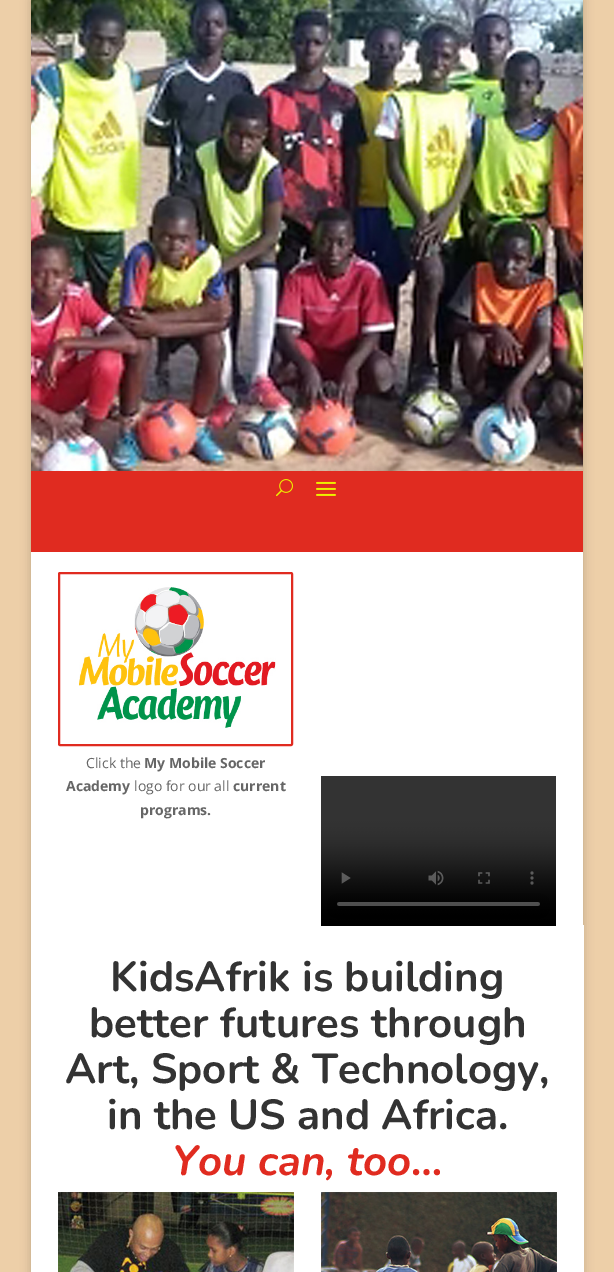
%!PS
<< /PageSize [614 1272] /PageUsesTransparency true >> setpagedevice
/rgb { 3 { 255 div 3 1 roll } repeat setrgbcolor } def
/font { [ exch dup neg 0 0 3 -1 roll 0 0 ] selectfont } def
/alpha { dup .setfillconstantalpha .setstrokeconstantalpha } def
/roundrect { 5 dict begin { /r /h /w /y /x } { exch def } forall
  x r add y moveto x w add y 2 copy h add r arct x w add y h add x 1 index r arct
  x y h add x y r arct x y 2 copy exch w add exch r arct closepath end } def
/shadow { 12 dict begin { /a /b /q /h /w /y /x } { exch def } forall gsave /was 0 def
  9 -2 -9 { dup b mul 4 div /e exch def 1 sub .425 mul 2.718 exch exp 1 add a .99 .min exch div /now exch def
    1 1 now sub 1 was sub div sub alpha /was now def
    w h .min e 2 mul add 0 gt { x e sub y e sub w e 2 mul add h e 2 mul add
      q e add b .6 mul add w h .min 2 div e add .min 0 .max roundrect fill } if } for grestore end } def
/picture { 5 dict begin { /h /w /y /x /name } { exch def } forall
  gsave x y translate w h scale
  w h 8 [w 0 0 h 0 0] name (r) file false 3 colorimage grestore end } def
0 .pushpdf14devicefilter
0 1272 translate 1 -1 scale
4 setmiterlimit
237 207 168 rgb
0 0 614 1272 rectfill
0 0 0 rgb
31 0 552 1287 0 5 0.2 shadow
(img/1.rgb) 31 0 552 471 picture
224 43 32 rgb
31 471 552 81 rectfill
(img/2.rgb) 276 479 17 18 picture
(img/3.rgb) 316 481 20 15 picture
255 255 255 rgb
31 552 552 373 rectfill
224 43 32 rgb
2 setlinewidth
59 573 233 172 1 roundrect stroke
(img/4.rgb) 79 587 197 141 picture
255 255 255 rgb
31 925 553 347 rectfill
(img/5.rgb) 321 776 235 150 picture
(img/6.rgb) 58 1192 236 80 picture
(img/7.rgb) 321 1192 236 80 picture
/OpenSans-Regular 14 font
102 102 102 rgb
86 768 moveto (Click the) show
/OpenSans-Bold 14 font
144 768 moveto (My Mobile Soccer) show
66 791 moveto (Academy) show
/OpenSans-Regular 14 font
134 791 moveto (logo for our all) show
/OpenSans-Bold 14 font
233 791 moveto (current) show
140 815 moveto (programs.) show
/Nunito-ExtraLight 42 font
51 51 51 rgb
[
  [(KidsAfrik is building) 110 991]
  [(better futures through) 89 1037]
  [(Art, Sport & Technology,) 65 1083]
  [(in the US and Africa.) 107 1129]
] { aload pop moveto show } forall
/Nunito-ExtraLightItalic 42 font
224 43 32 rgb
172 1175 moveto (You can, too…) show
.poppdf14devicefilter showpage
